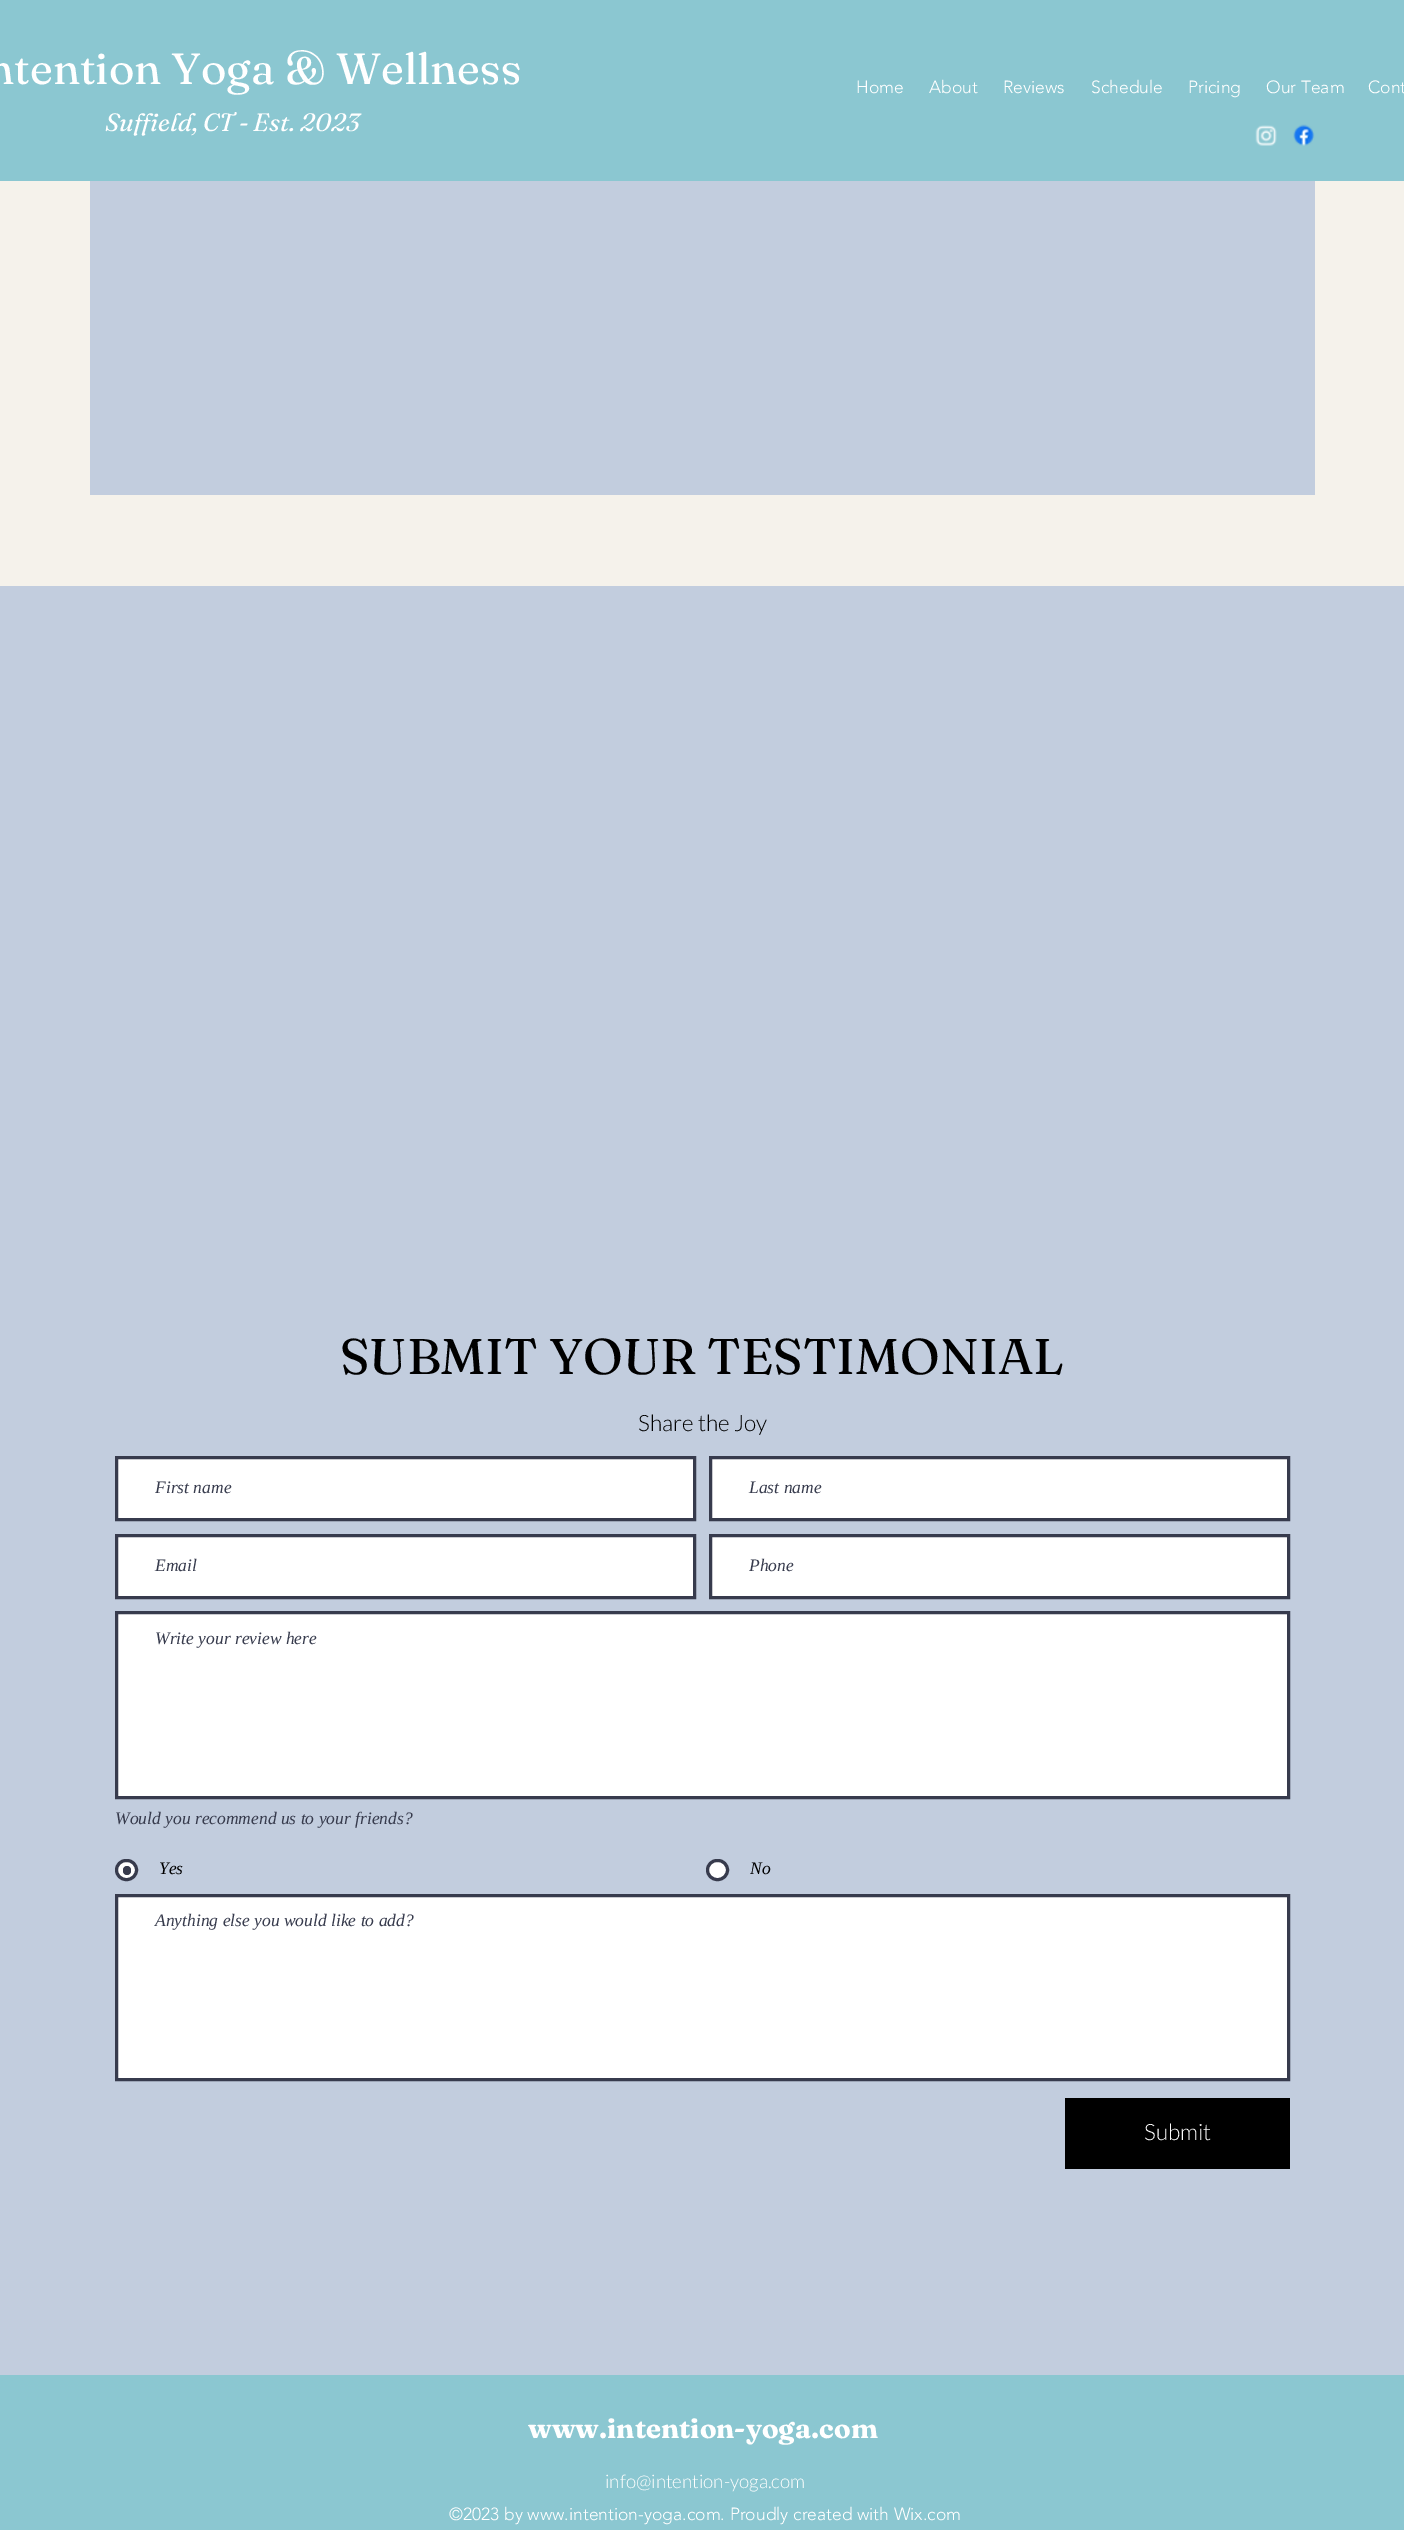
%!PS
<< /PageSize [1404 2530] >> setpagedevice
/rgb { 3 { 255 div 3 1 roll } repeat setrgbcolor } def
/font { [ exch dup neg 0 0 3 -1 roll 0 0 ] selectfont } def
/roundrect { 5 dict begin { /r /h /w /y /x } { exch def } forall
  x r add y moveto x w add y 2 copy h add r arct x w add y h add x 1 index r arct
  x y h add x y r arct x y 2 copy exch w add exch r arct closepath end } def
/picture { 5 dict begin { /h /w /y /x /name } { exch def } forall
  gsave x y translate w h scale
  w h 8 [w 0 0 h 0 0] name (r) file false 3 colorimage grestore end } def
0 2530 translate 1 -1 scale
4 setmiterlimit
245 242 235 rgb
0 0 1404 2530 rectfill
139 199 209 rgb
0 0 1404 181 rectfill
(img/1.rgb) 1255 125 22 21 picture
(img/2.rgb) 1293 124 22 22 picture
194 205 222 rgb
90 181 1225 314 rectfill
0 586 1404 1789 rectfill
255 255 255 rgb
116.5 1457.5 moveto 694.5 1457.5 lineto 694.5 1519.5 lineto 116.5 1519.5 lineto closepath gsave fill grestore
55 59 77 rgb
3 setlinewidth
stroke
255 255 255 rgb
710.5 1457.5 moveto 1288.5 1457.5 lineto 1288.5 1519.5 lineto 710.5 1519.5 lineto closepath gsave fill grestore
55 59 77 rgb
stroke
255 255 255 rgb
116.5 1535.5 moveto 694.5 1535.5 lineto 694.5 1597.5 lineto 116.5 1597.5 lineto closepath gsave fill grestore
55 59 77 rgb
stroke
255 255 255 rgb
710.5 1535.5 moveto 1288.5 1535.5 lineto 1288.5 1597.5 lineto 710.5 1597.5 lineto closepath gsave fill grestore
55 59 77 rgb
stroke
255 255 255 rgb
116.5 1612.5 moveto 1288.5 1612.5 lineto 1288.5 1797.5 lineto 116.5 1797.5 lineto closepath gsave fill grestore
55 59 77 rgb
stroke
255 255 255 rgb
116.5 1860.5 20 19 9.5 roundrect gsave fill grestore
55 59 77 rgb
stroke
123 1866 8 9 4 roundrect fill
255 255 255 rgb
707.5 1860.5 20 19 9.5 roundrect gsave fill grestore
55 59 77 rgb
stroke
255 255 255 rgb
116.5 1895.5 moveto 1288.5 1895.5 lineto 1288.5 2079.5 lineto 116.5 2079.5 lineto closepath gsave fill grestore
55 59 77 rgb
stroke
0 0 0 rgb
1065 2098 225 71 rectfill
139 199 209 rgb
0 2375 1404 155 rectfill
/Fraunces-Regular 43.75 font
255 255 255 rgb
-13 84 moveto (ntention Yoga & Wellness) show
/Fraunces-Italic 25 font
105 131 moveto (Suffield, CT - Est. 2023) show
/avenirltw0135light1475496-Light 17.5 font
[
  [(Home) 856 93]
  [(About) 929 93]
  [(Reviews) 1003 93]
  [(Schedule) 1091 93]
  [(Pricing) 1188 93]
  [(Our Team) 1266 93]
  [(Cont) 1368 93]
] { aload pop moveto show } forall
/Fraunces-Regular 50 font
0 0 0 rgb
340 1374 moveto (SUBMIT YOUR TESTIMONIAL) show
/Lato-Light 22.5 font
638 1431 moveto (Share the Joy) show
/LiberationSerif-Italic 17.5 font
55 59 77 rgb
[
  [(First name) 155 1493]
  [(Last name) 749 1493]
  [(Email) 155 1571]
  [(Phone) 749 1571]
  [(Write your review here) 155 1644]
  [(Would you recommend us to your friends?) 115 1824]
] { aload pop moveto show } forall
0 0 0 rgb
159 1874 moveto (Yes) show
750 1874 moveto (No) show
55 59 77 rgb
155 1926 moveto (Anything else you would like to add?) show
/Lato-Light 22.5 font
255 255 255 rgb
1144 2140 moveto (Submit) show
/Fraunces-Bold 27.5 font
528 2438 moveto (www.intention-yoga.com) show
/Lato-Light 18.75 font
605 2488 moveto (info@intention-yoga.com) show
/avenirltw0135light1475496-Light 17.5 font
449 2520 moveto (©2023 by www.intention-yoga.com. Proudly created with Wix.com) show
showpage
